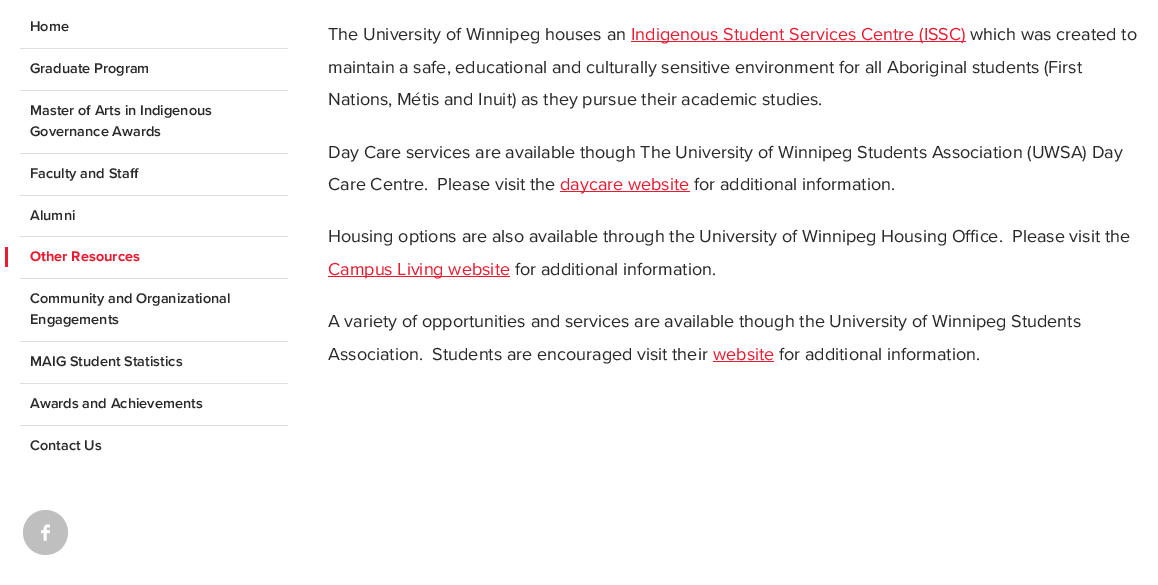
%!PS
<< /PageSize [1158 585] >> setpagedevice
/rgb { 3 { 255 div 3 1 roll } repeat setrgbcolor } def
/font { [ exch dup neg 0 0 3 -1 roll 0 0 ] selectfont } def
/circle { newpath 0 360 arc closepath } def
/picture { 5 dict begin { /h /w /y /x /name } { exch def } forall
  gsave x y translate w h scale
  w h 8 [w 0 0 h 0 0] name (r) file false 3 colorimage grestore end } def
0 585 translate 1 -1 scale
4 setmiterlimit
255 255 255 rgb
0 0 1158 585 rectfill
[
  [20 48 268 1 223 223 223]
  [20 90 268 1 223 223 223]
  [20 153 268 1 223 223 223]
  [20 195 268 1 223 223 223]
  [20 236 268 1 223 223 223]
  [20 278 268 1 223 223 223]
  [5 247 3 20 231 28 49]
  [20 341 268 1 223 223 223]
  [20 383 268 1 223 223 223]
  [20 425 268 1 223 223 223]
] { aload pop rgb rectfill } forall
191 191 191 rgb
45.5 532.5 22.5 circle fill
(img/1.rgb) 41 524 9 17 picture
[
  [631 41 335 1 231 28 49]
  [560 191 130 1 231 28 49]
  [328 276 182 1 231 28 49]
  [713 361 61 1 231 28 49]
] { aload pop rgb rectfill } forall
/ProximaNova-SemiBold 14.5 font
41 41 41 rgb
[
  [(Home) 30 31]
  [(Graduate Program) 30 73]
  [(Master of Arts in Indigenous) 30 115]
  [(Governance Awards) 30 136]
  [(Faculty and Staff) 30 178]
  [(Alumni) 30 220]
] { aload pop moveto show } forall
/ProximaNova-Bold 14.5 font
231 28 49 rgb
30 261 moveto (Other Resources) show
/ProximaNova-SemiBold 14.5 font
41 41 41 rgb
[
  [(Community and Organizational) 30 303]
  [(Engagements) 30 324]
  [(MAIG Student Statistics) 30 366]
  [(Awards and Achievements) 30 408]
  [(Contact Us) 30 450]
] { aload pop moveto show } forall
/ProximaNova-Regular 18 font
328 40 moveto (The University of Winnipeg houses an) show
231 28 49 rgb
631 40 moveto (Indigenous Student Services Centre \(ISSC\)) show
41 41 41 rgb
[
  [(which was created to) 970 40]
  [(maintain a safe, educational and culturally sensitive environment for all Aboriginal students \(First) 328 73]
  [(Nations, Métis and Inuit\) as they pursue their academic studies.) 328 105]
  [(Day Care services are available though The University of Winnipeg Students Association \(UWSA\) Day) 328 158]
  [(Care Centre.  Please visit the) 328 190]
] { aload pop moveto show } forall
231 28 49 rgb
560 190 moveto (daycare website) show
41 41 41 rgb
694 190 moveto (for additional information.) show
328 242 moveto (Housing options are also available through the University of Winnipeg Housing Office.  Please visit the) show
231 28 49 rgb
328 275 moveto (Campus Living website) show
41 41 41 rgb
[
  [(for additional information.) 515 275]
  [(A variety of opportunities and services are available though the University of Winnipeg Students) 328 327]
  [(Association.  Students are encouraged visit their) 328 360]
] { aload pop moveto show } forall
231 28 49 rgb
713 360 moveto (website) show
41 41 41 rgb
779 360 moveto (for additional information.) show
showpage
